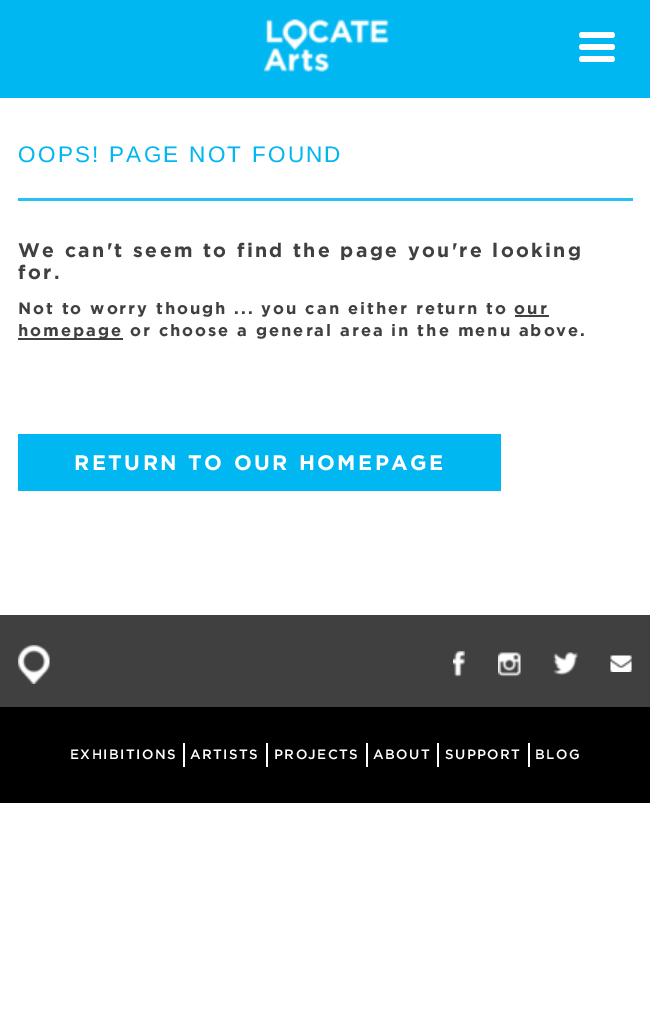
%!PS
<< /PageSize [650 1026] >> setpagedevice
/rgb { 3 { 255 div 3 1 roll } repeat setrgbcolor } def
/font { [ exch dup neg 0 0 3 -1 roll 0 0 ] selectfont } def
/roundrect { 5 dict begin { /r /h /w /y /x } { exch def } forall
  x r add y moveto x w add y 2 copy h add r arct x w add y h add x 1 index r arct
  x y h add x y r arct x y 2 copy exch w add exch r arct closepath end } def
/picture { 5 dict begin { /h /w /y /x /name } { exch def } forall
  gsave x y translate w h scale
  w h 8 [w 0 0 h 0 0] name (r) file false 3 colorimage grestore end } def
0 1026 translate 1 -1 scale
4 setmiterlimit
255 255 255 rgb
0 0 650 1026 rectfill
0 183 241 rgb
0 0 650 98 rectfill
(img/1.rgb) 263 19 126 53 picture
255 255 255 rgb
579 32 36 6 3 roundrect fill
579 44 36 6 3 roundrect fill
579 56 36 6 3 roundrect fill
[
  [18 198 615 3 37 193 243]
  [18 338 105 2 65 64 66]
  [18 434 483 57 0 183 241]
  [0 615 650 92 64 64 65]
] { aload pop rgb rectfill } forall
(img/2.rgb) 18 645 32 39 picture
(img/3.rgb) 453 651 12 26 picture
(img/4.rgb) 498 652 23 25 picture
(img/5.rgb) 553 652 25 23 picture
(img/6.rgb) 610 655 22 17 picture
[
  [0 707 650 96 0 0 0]
  [183 743 2 24 255 255 255]
  [266 743 2 24 255 255 255]
  [366 743 2 24 255 255 255]
  [437 743 2 24 255 255 255]
  [528 743 2 24 255 255 255]
] { aload pop rgb rectfill } forall
/LiberationSans-Regular 22.5 font
0 183 241 rgb
18 162 moveto 2.25 0 (OOPS! PAGE NOT FOUND) ashow
/Gotham-Bold 19.5 font
64 64 65 rgb
18 257 moveto 2.35 0 (We can't seem to find the page you're looking) ashow
18 279 moveto 2.35 0 (for.) ashow
/Gotham-Bold 16.5 font
18 314 moveto 1.98 0 (Not to worry though ... you can either return to our) ashow
18 336 moveto 1.98 0 (homepage or choose a general area in the menu above.) ashow
65 64 66 rgb
515 315 34 2 rectfill
/Gotham-Bold 21 font
255 255 255 rgb
74 470 moveto 2.5 0 (RETURN TO OUR HOMEPAGE) ashow
/Gotham-Medium 13.5 font
70 759 moveto 1.4 0 (EXHIBITIONS) ashow
190 759 moveto 1.4 0 (ARTISTS) ashow
274 759 moveto 1.4 0 (PROJECTS) ashow
373 759 moveto 1.4 0 (ABOUT) ashow
445 759 moveto 1.4 0 (SUPPORT) ashow
535 759 moveto 1.4 0 (BLOG) ashow
showpage
